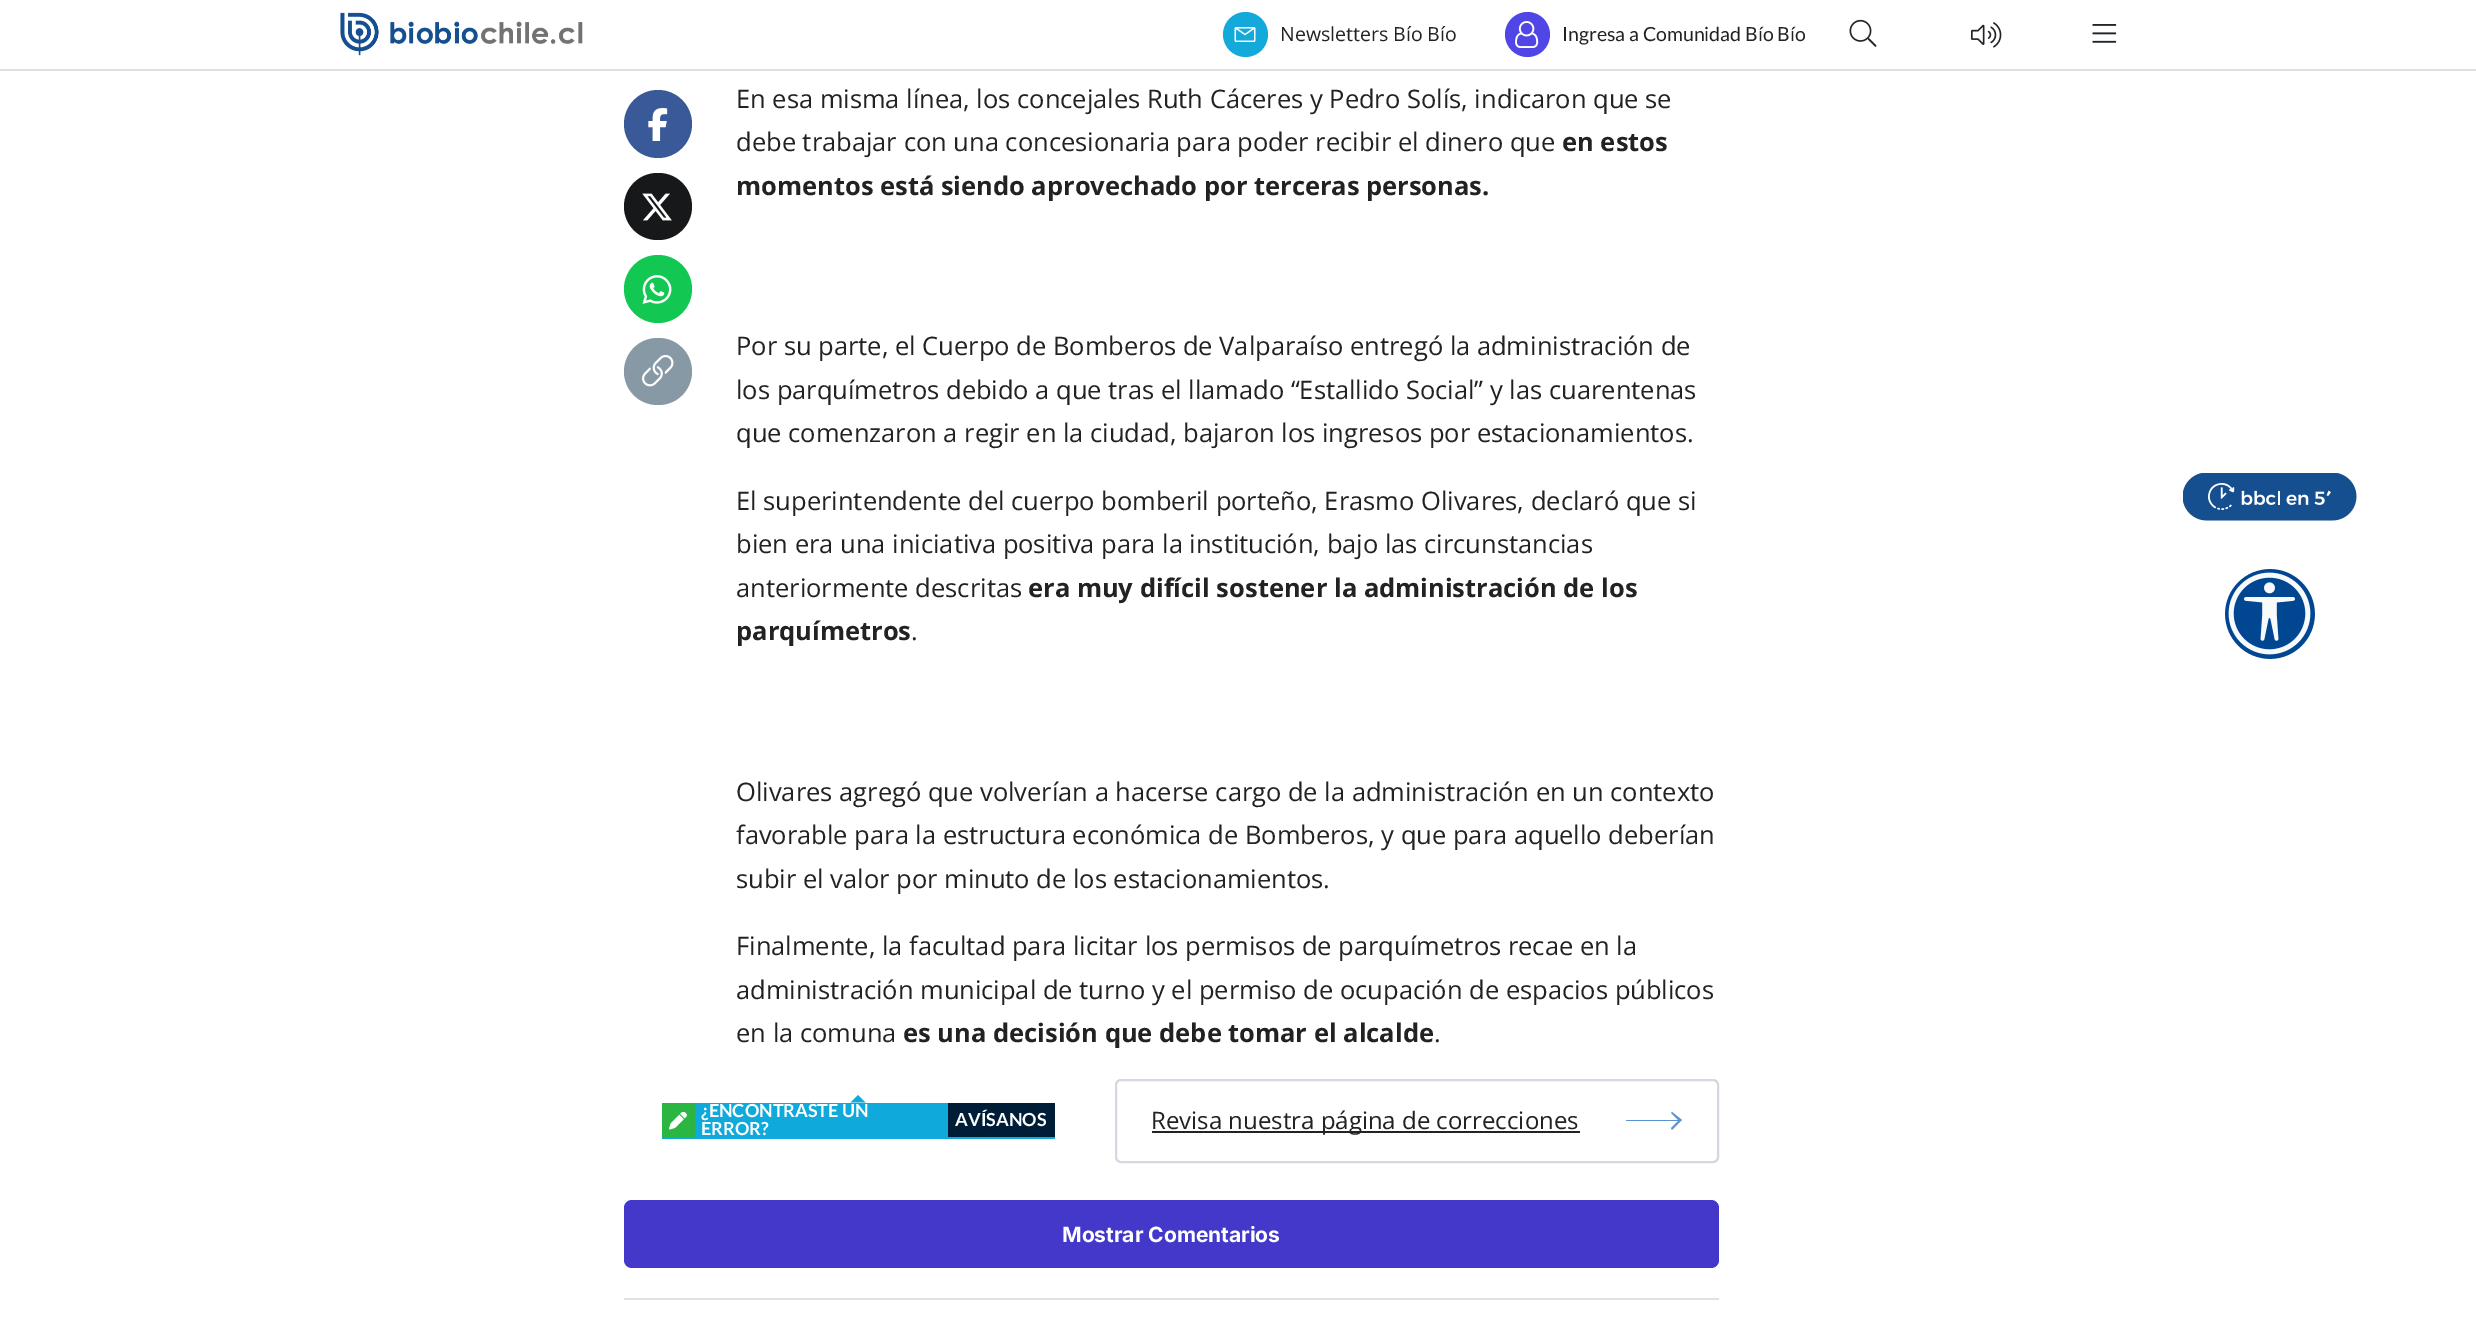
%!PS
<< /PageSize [2476 1317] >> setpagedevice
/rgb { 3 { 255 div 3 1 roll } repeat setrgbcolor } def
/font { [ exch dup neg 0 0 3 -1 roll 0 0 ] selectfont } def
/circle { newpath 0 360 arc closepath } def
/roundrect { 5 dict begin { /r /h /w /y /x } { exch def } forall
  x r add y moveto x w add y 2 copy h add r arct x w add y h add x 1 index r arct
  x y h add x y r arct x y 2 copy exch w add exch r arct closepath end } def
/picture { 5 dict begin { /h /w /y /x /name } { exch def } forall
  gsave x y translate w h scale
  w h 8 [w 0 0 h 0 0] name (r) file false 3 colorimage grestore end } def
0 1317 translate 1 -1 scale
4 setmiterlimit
255 255 255 rgb
0 0 2476 1317 rectfill
219 224 228 rgb
0 69 2476 2 rectfill
(img/1.rgb) 340 12 243 44 picture
19 170 219 rgb
1245.5 34.5 22.5 circle fill
(img/2.rgb) 1234 27 22 15 picture
79 70 229 rgb
1527.5 34.5 22.5 circle fill
(img/3.rgb) 1515 21 24 27 picture
(img/4.rgb) 1849 19 28 28 picture
(img/5.rgb) 1971 22 31 26 picture
(img/6.rgb) 2092 24 25 19 picture
(img/7.rgb) 2183 473 174 48 picture
(img/8.rgb) 2225 569 90 90 picture
58 89 152 rgb
658 124 34 circle fill
(img/9.rgb) 648 108 20 33 picture
23 24 25 rgb
624 173 68 67 33.5 roundrect fill
(img/10.rgb) 642 193 30 28 picture
18 200 83 rgb
658 289 34 circle fill
(img/11.rgb) 642 275 30 29 picture
136 153 166 rgb
624 338 68 67 33.5 roundrect fill
(img/12.rgb) 642 355 32 32 picture
15 170 219 rgb
662 1103 393 36 rectfill
865.5 1102.5 moveto 850.5 1102.5 lineto 858 1095 lineto closepath fill
43 182 67 rgb
662 1103 33 34 rectfill
(img/13.rgb) 669 1112 18 18 picture
0 29 56 rgb
948 1103 107 34 rectfill
211 216 225 rgb
2 setlinewidth
1116 1080 602 82 5 roundrect stroke
34 34 34 rgb
1152 1131 428 2 rectfill
92 147 213 rgb
1672 1112 moveto 1671 1113 lineto 1678 1120 lineto 1626 1120 lineto 1626 1121 lineto 1678 1121 lineto 1671 1128 lineto 1672 1130 lineto 1682 1120 lineto closepath fill
67 56 202 rgb
624 1200 1095 68 8 roundrect fill
222 225 229 rgb
624 1298 1095 2 rectfill
/OpenSans-Regular 19.5 font
34 34 34 rgb
1280 41 moveto (Newsletters Bío Bío) show
/Lato-Regular 19.5 font
1562 41 moveto (Ingresa a Comunidad Bío Bío) show
/OpenSans-Regular 25.5 font
736 108 moveto (En esa misma línea, los concejales Ruth Cáceres y Pedro Solís, indicaron que se) show
736 151 moveto (debe trabajar con una concesionaria para poder recibir el dinero que) show
/OpenSans-Bold 25.5 font
1562 151 moveto (en estos) show
736 195 moveto (momentos está siendo aprovechado por terceras personas.) show
/OpenSans-Regular 25.5 font
[
  [(Por su parte, el Cuerpo de Bomberos de Valparaíso entregó la administración de) 736 355]
  [(los parquímetros debido a que tras el llamado “Estallido Social” y las cuarentenas) 736 399]
  [(que comenzaron a regir en la ciudad, bajaron los ingresos por estacionamientos.) 736 442]
  [(El superintendente del cuerpo bomberil porteño, Erasmo Olivares, declaró que si) 736 510]
  [(bien era una iniciativa positiva para la institución, bajo las circunstancias) 736 553]
  [(anteriormente descritas) 736 597]
] { aload pop moveto show } forall
/OpenSans-Bold 25.5 font
1028 597 moveto (era muy difícil sostener la administración de los) show
736 640 moveto (parquímetros) show
/OpenSans-Regular 25.5 font
[
  [(.) 911 640]
  [(Olivares agregó que volverían a hacerse cargo de la administración en un contexto) 736 801]
  [(favorable para la estructura económica de Bomberos, y que para aquello deberían) 736 844]
  [(subir el valor por minuto de los estacionamientos.) 736 888]
  [(Finalmente, la facultad para licitar los permisos de parquímetros recae en la) 736 955]
  [(administración municipal de turno y el permiso de ocupación de espacios públicos) 736 999]
  [(en la comuna) 736 1042]
] { aload pop moveto show } forall
/OpenSans-Bold 25.5 font
903 1042 moveto (es una decisión que debe tomar el alcalde) show
/OpenSans-Regular 25.5 font
1434 1042 moveto (.) show
/Lato-Bold 18 font
255 255 255 rgb
[
  [(¿ENCONTRASTE UN) 701 1117]
  [(AVÍSANOS) 955 1126]
  [(ERROR?) 701 1135]
] { aload pop moveto show } forall
/OpenSans-Regular 24 font
34 34 34 rgb
1151 1129 moveto (Revisa nuestra página de correcciones) show
/Inter-Bold 21 font
255 255 255 rgb
1062 1242 moveto (Mostrar Comentarios) show
showpage
